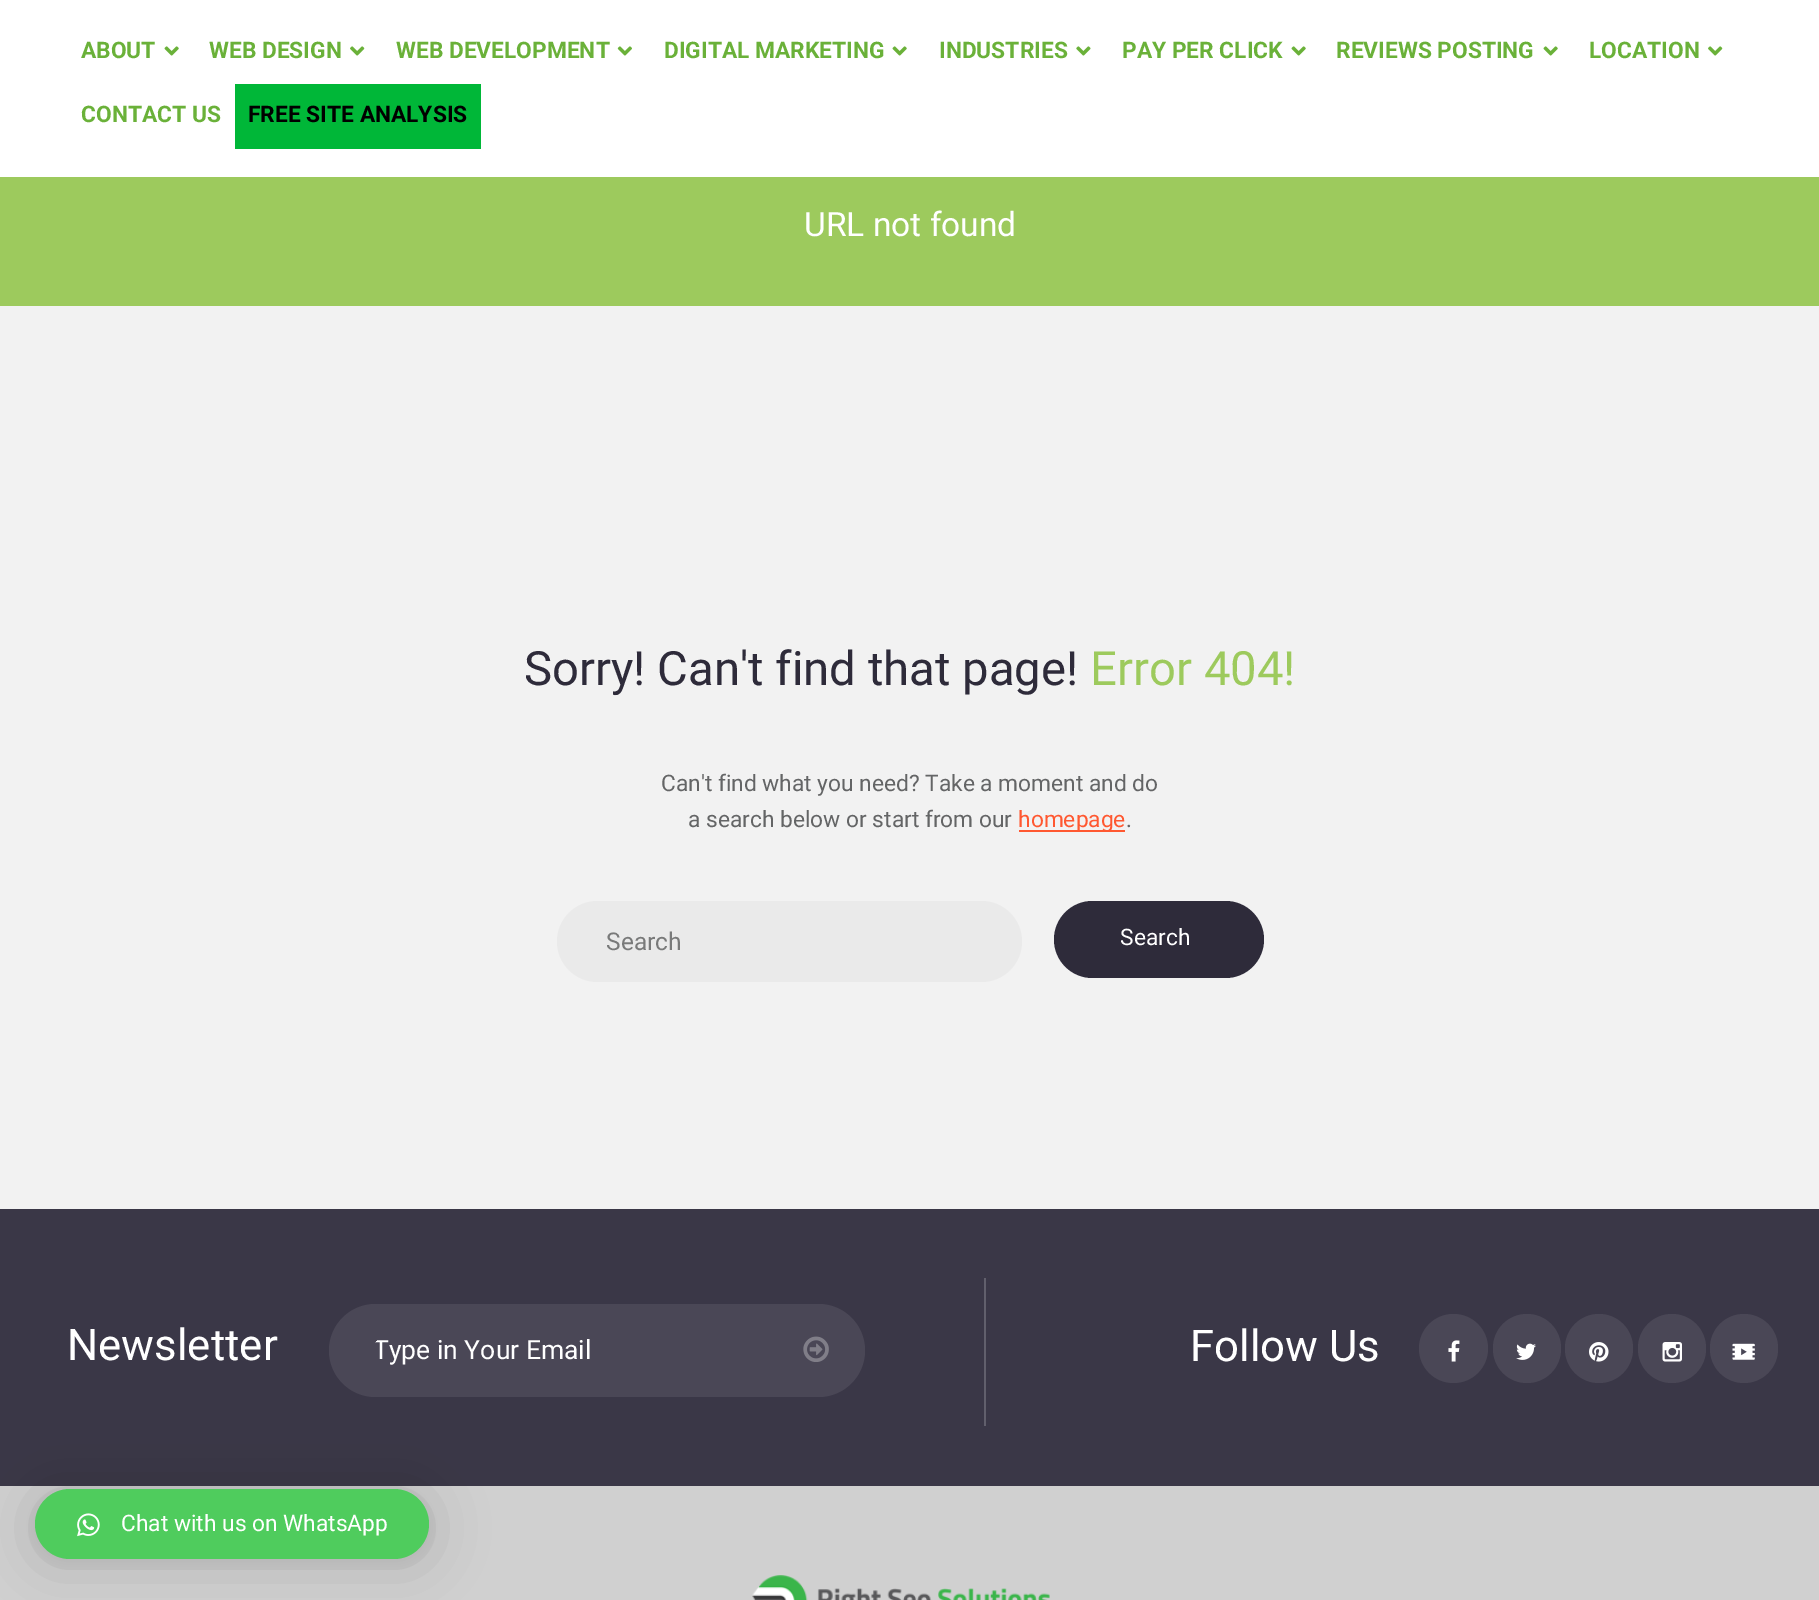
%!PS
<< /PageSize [1819 1600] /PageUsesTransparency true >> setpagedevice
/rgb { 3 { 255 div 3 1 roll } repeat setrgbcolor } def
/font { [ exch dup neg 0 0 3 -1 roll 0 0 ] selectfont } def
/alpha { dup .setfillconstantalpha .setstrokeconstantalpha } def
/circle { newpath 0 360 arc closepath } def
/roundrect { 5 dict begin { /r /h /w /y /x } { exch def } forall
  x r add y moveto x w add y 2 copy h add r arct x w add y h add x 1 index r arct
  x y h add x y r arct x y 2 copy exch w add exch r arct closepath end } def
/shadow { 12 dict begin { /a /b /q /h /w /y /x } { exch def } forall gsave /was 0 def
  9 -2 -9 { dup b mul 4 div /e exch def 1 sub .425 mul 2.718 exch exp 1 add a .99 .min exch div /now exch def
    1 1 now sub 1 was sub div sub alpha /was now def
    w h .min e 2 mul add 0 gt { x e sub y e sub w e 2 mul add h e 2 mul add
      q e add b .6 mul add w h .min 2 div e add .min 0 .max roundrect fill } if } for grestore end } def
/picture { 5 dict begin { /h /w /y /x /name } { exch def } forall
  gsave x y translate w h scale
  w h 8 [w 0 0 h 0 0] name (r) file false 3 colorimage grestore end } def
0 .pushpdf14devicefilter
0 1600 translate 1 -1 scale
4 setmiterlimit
242 242 242 rgb
0 0 1819 1600 rectfill
255 255 255 rgb
0 0 1819 177 rectfill
(img/1.rgb) 164 46 15 10 picture
(img/2.rgb) 350 46 15 10 picture
(img/3.rgb) 617 46 15 10 picture
(img/1.rgb) 892 46 15 10 picture
(img/4.rgb) 1076 46 15 10 picture
(img/1.rgb) 1291 46 15 10 picture
(img/1.rgb) 1543 46 15 10 picture
(img/2.rgb) 1708 46 15 10 picture
[
  [235 84 246 65 0 183 56]
  [0 177 1819 129 157 202 93]
  [1019 830 106 2 255 88 49]
] { aload pop rgb rectfill } forall
234 234 234 rgb
557 901 465 81 40.5 roundrect fill
46 43 58 rgb
1054 901 210 77 38.5 roundrect fill
58 55 71 rgb
0 1209 1819 277 rectfill
74 71 86 rgb
329 1304 536 93 46.5 roundrect fill
(img/5.rgb) 803 1336 26 26 picture
97 95 108 rgb
984 1278 2 148 rectfill
74 71 86 rgb
1453.5 1348.5 34.5 circle fill
(img/6.rgb) 1448 1340 12 22 picture
1493 1314 68 69 34 roundrect fill
(img/7.rgb) 1516 1343 20 17 picture
1565 1314 68 69 34 roundrect fill
(img/8.rgb) 1589 1342 20 20 picture
1638 1314 68 69 34 roundrect fill
(img/9.rgb) 1662 1342 20 20 picture
1710 1314 68 69 34 roundrect fill
(img/10.rgb) 1732 1343 23 17 picture
208 208 208 rgb
0 1486 1819 114 rectfill
(img/11.rgb) 752 1575 298 25 picture
0 0 0 rgb
35 1493 394 70 35 28 0.16 shadow
35 1491 394 70 35 5 0.06 shadow
79 204 93 rgb
35 1489 394 70 35 roundrect fill
(img/12.rgb) 77 1513 23 24 picture
/Roboto-Bold 22.75 font
106 177 57 rgb
[
  [(ABOUT) 81 58]
  [(WEB DESIGN) 209 58]
  [(WEB DEVELOPMENT) 396 58]
  [(DIGITAL MARKETING) 664 58]
  [(INDUSTRIES) 939 58]
  [(PAY PER CLICK) 1122 58]
  [(REVIEWS POSTING) 1336 58]
  [(LOCATION) 1589 58]
  [(CONTACT US) 81 122]
] { aload pop moveto show } forall
0 0 0 rgb
248 122 moveto (FREE SITE ANALYSIS) show
/Roboto-Regular 33.5 font
255 255 255 rgb
804 236 moveto (URL not found) show
/Roboto-Regular 47.25 font
46 43 58 rgb
524 685 moveto (Sorry! Can't find that page!) show
157 202 93 rgb
1090 685 moveto (Error 404!) show
/Roboto-Regular 22.75 font
100 101 102 rgb
661 791 moveto (Can't find what you need? Take a moment and do) show
688 827 moveto (a search below or start from our) show
255 88 49 rgb
1018 827 moveto (homepage) show
100 101 102 rgb
1126 827 moveto (.) show
/Roboto-Regular 24.5 font
121 122 122 rgb
606 950 moveto (Search) show
/Roboto-Regular 22.75 font
255 255 255 rgb
1120 945 moveto (Search) show
/Roboto-Regular 43.75 font
67 1360 moveto (Newsletter) show
gsave
373 1335 420 34 17 roundrect clip newpath
/Roboto-Regular 26.5 font
373 1359 moveto (Type in Your Email) show
grestore
1190 1361 moveto (Follow Us) show
/Roboto-Regular 22.75 font
121 1531 moveto (Chat with us on WhatsApp) show
.poppdf14devicefilter showpage
